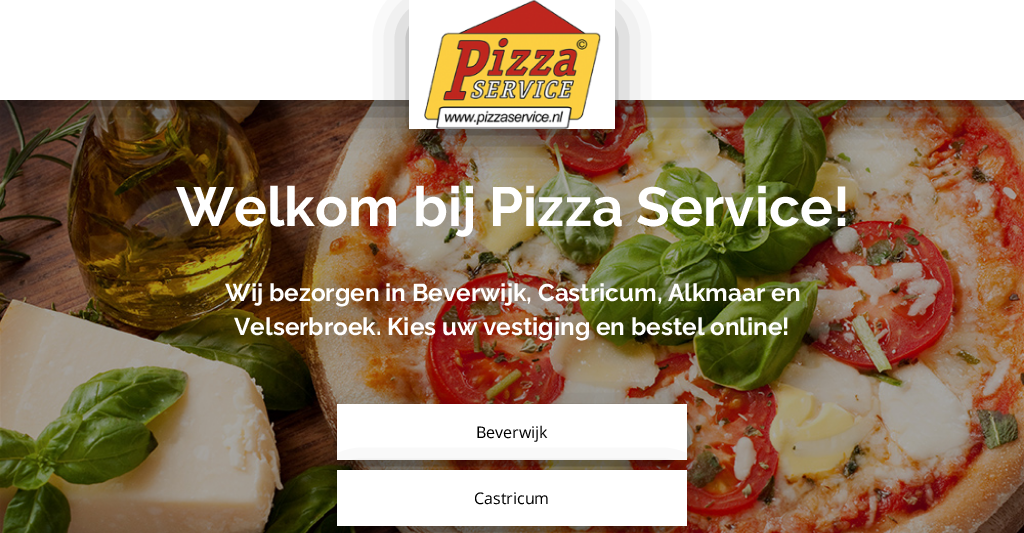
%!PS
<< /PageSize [1024 533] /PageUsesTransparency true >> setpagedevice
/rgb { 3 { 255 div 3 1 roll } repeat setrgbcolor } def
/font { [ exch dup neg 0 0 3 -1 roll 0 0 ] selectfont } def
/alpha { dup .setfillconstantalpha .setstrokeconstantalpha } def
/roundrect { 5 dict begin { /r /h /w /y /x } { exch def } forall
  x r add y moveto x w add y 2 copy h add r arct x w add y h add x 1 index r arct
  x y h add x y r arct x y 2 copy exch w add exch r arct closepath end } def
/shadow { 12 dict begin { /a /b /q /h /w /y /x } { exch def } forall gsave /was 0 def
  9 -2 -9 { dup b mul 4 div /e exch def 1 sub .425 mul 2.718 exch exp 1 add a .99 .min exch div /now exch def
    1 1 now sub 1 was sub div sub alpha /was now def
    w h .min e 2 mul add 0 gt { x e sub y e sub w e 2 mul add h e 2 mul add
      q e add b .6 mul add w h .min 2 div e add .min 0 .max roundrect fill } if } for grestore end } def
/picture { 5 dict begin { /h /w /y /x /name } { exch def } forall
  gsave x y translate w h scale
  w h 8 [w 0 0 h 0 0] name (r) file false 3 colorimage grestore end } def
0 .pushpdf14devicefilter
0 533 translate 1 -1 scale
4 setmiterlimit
255 255 255 rgb
0 0 1024 533 rectfill
(img/1.rgb) 0 100 1024 433 picture
0 0 0 rgb
13 27 998 74 0 22 0.75 shadow
255 255 255 rgb
0 0 1024 100 rectfill
0 0 0 rgb
422 27 180 103 0 22 0.75 shadow
255 255 255 rgb
409 0 206 129 rectfill
(img/2.rgb) 424 0 177 129 picture
0 0 0 rgb
350 431 324 30 0 22 0.75 shadow
255 255 255 rgb
337 404 350 56 rectfill
0 0 0 rgb
350 497 324 30 0 22 0.75 shadow
255 255 255 rgb
337 470 350 56 rectfill
/Raleway-Bold 55 font
176 226 moveto (Welkom bij Pizza Service!) show
/Raleway-Bold 24.25 font
225 301 moveto (Wij bezorgen in Beverwijk, Castricum, Alkmaar en) show
234 335 moveto (Velserbroek. Kies uw vestiging en bestel online!) show
/OpenSans-Regular 16 font
0 0 0 rgb
476 438 moveto (Beverwijk) show
474 504 moveto (Castricum) show
.poppdf14devicefilter showpage
